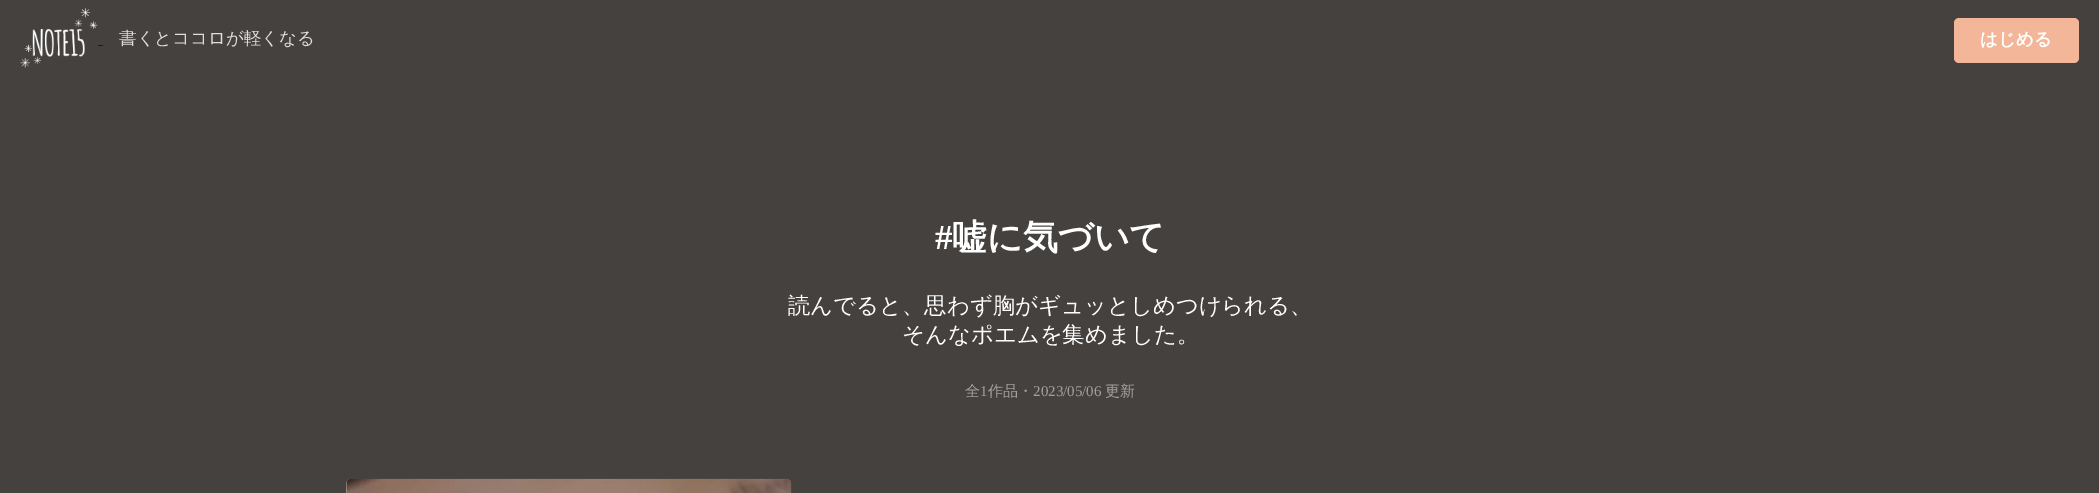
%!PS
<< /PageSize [2099 493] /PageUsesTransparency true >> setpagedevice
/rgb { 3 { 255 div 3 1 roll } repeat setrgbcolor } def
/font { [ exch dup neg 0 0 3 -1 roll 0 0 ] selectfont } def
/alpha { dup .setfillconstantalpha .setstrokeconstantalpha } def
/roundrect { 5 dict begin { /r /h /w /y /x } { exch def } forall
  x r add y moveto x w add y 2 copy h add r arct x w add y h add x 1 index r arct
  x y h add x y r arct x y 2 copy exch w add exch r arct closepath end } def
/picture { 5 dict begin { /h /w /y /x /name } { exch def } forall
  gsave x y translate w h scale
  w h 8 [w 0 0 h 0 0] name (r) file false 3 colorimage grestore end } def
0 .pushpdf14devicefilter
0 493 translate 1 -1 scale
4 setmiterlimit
68 65 63 rgb
0 0 2099 493 rectfill
(img/1.rgb) 20 7 78 61 picture
0 0 238 rgb
98 45 5 1 rectfill
244 182 153 rgb
1954 18 125 45 5 roundrect fill
255 255 255 rgb
346 479 445 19 5 roundrect fill
0.05 alpha
0 0 0 rgb
346 479 445 14 rectfill
1 alpha
(img/2.rgb) 346 478 446 15 picture
0.2 alpha
351 479 moveto 786 479 lineto 789 479 791 481 791 484 curveto 791 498 lineto 346 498 lineto 346 484 lineto 346 481 348 479 351 479 curveto closepath fill
/WenQuanYiZenHei-Medium 17.5 font
1 alpha
221 221 221 rgb
119 44 moveto (書くとココロが軽くなる) show
/WenQuanYiZenHei-Bold 17.5 font
255 255 255 rgb
1980 45 moveto (はじめる) show
/LiberationSerif-Bold 35 font
935 249 moveto (#) show
/WenQuanYiZenHei-Bold 35 font
952 249 moveto (嘘に気づいて) show
/WenQuanYiZenHei-Medium 22.4 font
788 313 moveto (読んでると、思わず胸がギュッとしめつけられる、) show
902 342 moveto (そんなポエムを集めました。) show
/WenQuanYiZenHei-Medium 15 font
162 160 159 rgb
965 396 moveto (全) show
/LiberationSerif-Regular 15 font
980 396 moveto (1) show
/WenQuanYiZenHei-Medium 15 font
988 396 moveto (作品・) show
/LiberationSerif-Regular 15 font
1033 396 moveto (2023/05/06) show
/WenQuanYiZenHei-Medium 15 font
1105 396 moveto (更新) show
.poppdf14devicefilter showpage
